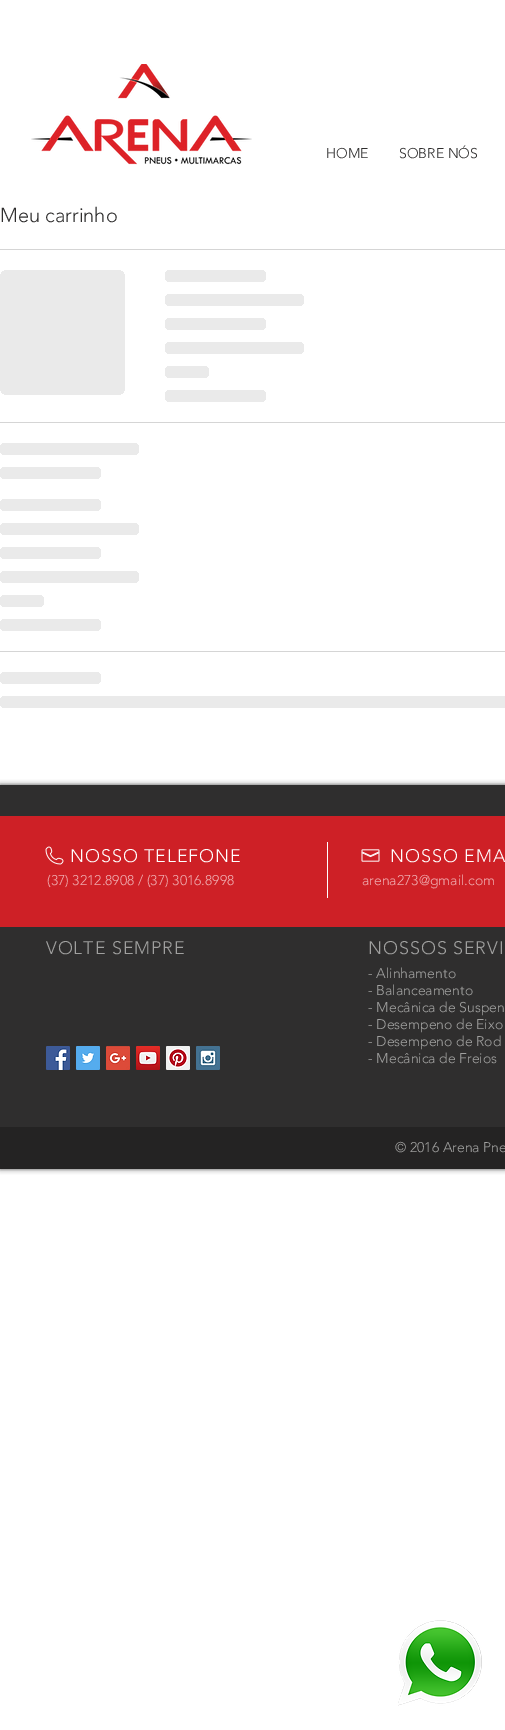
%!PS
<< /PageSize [505 1730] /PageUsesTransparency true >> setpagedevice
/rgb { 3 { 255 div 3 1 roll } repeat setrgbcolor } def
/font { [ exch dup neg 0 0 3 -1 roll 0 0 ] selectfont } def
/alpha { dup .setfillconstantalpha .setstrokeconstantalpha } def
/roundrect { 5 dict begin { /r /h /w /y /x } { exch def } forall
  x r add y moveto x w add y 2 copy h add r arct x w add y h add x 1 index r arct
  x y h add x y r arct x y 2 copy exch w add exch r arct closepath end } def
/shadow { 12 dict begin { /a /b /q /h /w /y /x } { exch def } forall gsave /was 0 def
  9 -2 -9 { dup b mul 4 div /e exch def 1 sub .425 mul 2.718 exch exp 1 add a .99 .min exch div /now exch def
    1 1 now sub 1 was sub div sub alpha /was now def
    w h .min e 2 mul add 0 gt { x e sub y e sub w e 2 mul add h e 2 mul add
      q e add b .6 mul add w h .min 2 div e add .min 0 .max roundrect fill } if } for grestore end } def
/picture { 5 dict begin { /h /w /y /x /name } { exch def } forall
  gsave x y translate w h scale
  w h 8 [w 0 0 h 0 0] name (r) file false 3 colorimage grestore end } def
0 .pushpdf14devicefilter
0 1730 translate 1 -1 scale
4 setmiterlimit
255 255 255 rgb
0 0 505 1730 rectfill
(img/1.rgb) 31 64 221 101 picture
213 213 213 rgb
0 249 505 1 rectfill
gsave 0 270 125 125 8 roundrect clip newpath
<< /ShadingType 2 /ColorSpace /DeviceRGB /Coords [0 333 500 333] /Extend [true true] /Function << /FunctionType 3 /Domain [0 1] /Functions [<< /FunctionType 2 /Domain [0 1] /C0 [0.918 0.918 0.918] /C1 [0.918 0.918 0.918] /N 1 >> << /FunctionType 2 /Domain [0 1] /C0 [0.918 0.918 0.918] /C1 [0.835 0.835 0.835] /N 1 >> << /FunctionType 2 /Domain [0 1] /C0 [0.835 0.835 0.835] /C1 [0.918 0.918 0.918] /N 1 >> << /FunctionType 2 /Domain [0 1] /C0 [0.918 0.918 0.918] /C1 [0.918 0.918 0.918] /N 1 >>] /Bounds [0.25 0.37 0.63] /Encode [0 1 0 1 0 1 0 1] >> >> shfill grestore
gsave 165 270 101 12 6 roundrect clip newpath
<< /ShadingType 2 /ColorSpace /DeviceRGB /Coords [165 276 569 276] /Extend [true true] /Function << /FunctionType 3 /Domain [0 1] /Functions [<< /FunctionType 2 /Domain [0 1] /C0 [0.918 0.918 0.918] /C1 [0.918 0.918 0.918] /N 1 >> << /FunctionType 2 /Domain [0 1] /C0 [0.918 0.918 0.918] /C1 [0.835 0.835 0.835] /N 1 >> << /FunctionType 2 /Domain [0 1] /C0 [0.835 0.835 0.835] /C1 [0.918 0.918 0.918] /N 1 >> << /FunctionType 2 /Domain [0 1] /C0 [0.918 0.918 0.918] /C1 [0.918 0.918 0.918] /N 1 >>] /Bounds [0.25 0.37 0.63] /Encode [0 1 0 1 0 1 0 1] >> >> shfill grestore
gsave 165 294 139 12 6 roundrect clip newpath
<< /ShadingType 2 /ColorSpace /DeviceRGB /Coords [165 300 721 300] /Extend [true true] /Function << /FunctionType 3 /Domain [0 1] /Functions [<< /FunctionType 2 /Domain [0 1] /C0 [0.918 0.918 0.918] /C1 [0.918 0.918 0.918] /N 1 >> << /FunctionType 2 /Domain [0 1] /C0 [0.918 0.918 0.918] /C1 [0.835 0.835 0.835] /N 1 >> << /FunctionType 2 /Domain [0 1] /C0 [0.835 0.835 0.835] /C1 [0.918 0.918 0.918] /N 1 >> << /FunctionType 2 /Domain [0 1] /C0 [0.918 0.918 0.918] /C1 [0.918 0.918 0.918] /N 1 >>] /Bounds [0.25 0.37 0.63] /Encode [0 1 0 1 0 1 0 1] >> >> shfill grestore
gsave 165 318 101 12 6 roundrect clip newpath
<< /ShadingType 2 /ColorSpace /DeviceRGB /Coords [165 324 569 324] /Extend [true true] /Function << /FunctionType 3 /Domain [0 1] /Functions [<< /FunctionType 2 /Domain [0 1] /C0 [0.918 0.918 0.918] /C1 [0.918 0.918 0.918] /N 1 >> << /FunctionType 2 /Domain [0 1] /C0 [0.918 0.918 0.918] /C1 [0.835 0.835 0.835] /N 1 >> << /FunctionType 2 /Domain [0 1] /C0 [0.835 0.835 0.835] /C1 [0.918 0.918 0.918] /N 1 >> << /FunctionType 2 /Domain [0 1] /C0 [0.918 0.918 0.918] /C1 [0.918 0.918 0.918] /N 1 >>] /Bounds [0.25 0.37 0.63] /Encode [0 1 0 1 0 1 0 1] >> >> shfill grestore
gsave 165 342 139 12 6 roundrect clip newpath
<< /ShadingType 2 /ColorSpace /DeviceRGB /Coords [165 348 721 348] /Extend [true true] /Function << /FunctionType 3 /Domain [0 1] /Functions [<< /FunctionType 2 /Domain [0 1] /C0 [0.918 0.918 0.918] /C1 [0.918 0.918 0.918] /N 1 >> << /FunctionType 2 /Domain [0 1] /C0 [0.918 0.918 0.918] /C1 [0.835 0.835 0.835] /N 1 >> << /FunctionType 2 /Domain [0 1] /C0 [0.835 0.835 0.835] /C1 [0.918 0.918 0.918] /N 1 >> << /FunctionType 2 /Domain [0 1] /C0 [0.918 0.918 0.918] /C1 [0.918 0.918 0.918] /N 1 >>] /Bounds [0.25 0.37 0.63] /Encode [0 1 0 1 0 1 0 1] >> >> shfill grestore
gsave 165 366 44 12 6 roundrect clip newpath
<< /ShadingType 2 /ColorSpace /DeviceRGB /Coords [165 372 341 372] /Extend [true true] /Function << /FunctionType 3 /Domain [0 1] /Functions [<< /FunctionType 2 /Domain [0 1] /C0 [0.918 0.918 0.918] /C1 [0.918 0.918 0.918] /N 1 >> << /FunctionType 2 /Domain [0 1] /C0 [0.918 0.918 0.918] /C1 [0.835 0.835 0.835] /N 1 >> << /FunctionType 2 /Domain [0 1] /C0 [0.835 0.835 0.835] /C1 [0.918 0.918 0.918] /N 1 >> << /FunctionType 2 /Domain [0 1] /C0 [0.918 0.918 0.918] /C1 [0.918 0.918 0.918] /N 1 >>] /Bounds [0.25 0.37 0.63] /Encode [0 1 0 1 0 1 0 1] >> >> shfill grestore
gsave 165 390 101 12 6 roundrect clip newpath
<< /ShadingType 2 /ColorSpace /DeviceRGB /Coords [165 396 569 396] /Extend [true true] /Function << /FunctionType 3 /Domain [0 1] /Functions [<< /FunctionType 2 /Domain [0 1] /C0 [0.918 0.918 0.918] /C1 [0.918 0.918 0.918] /N 1 >> << /FunctionType 2 /Domain [0 1] /C0 [0.918 0.918 0.918] /C1 [0.835 0.835 0.835] /N 1 >> << /FunctionType 2 /Domain [0 1] /C0 [0.835 0.835 0.835] /C1 [0.918 0.918 0.918] /N 1 >> << /FunctionType 2 /Domain [0 1] /C0 [0.918 0.918 0.918] /C1 [0.918 0.918 0.918] /N 1 >>] /Bounds [0.25 0.37 0.63] /Encode [0 1 0 1 0 1 0 1] >> >> shfill grestore
0 422 505 1 rectfill
gsave 0 443 139 12 6 roundrect clip newpath
<< /ShadingType 2 /ColorSpace /DeviceRGB /Coords [0 449 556 449] /Extend [true true] /Function << /FunctionType 3 /Domain [0 1] /Functions [<< /FunctionType 2 /Domain [0 1] /C0 [0.918 0.918 0.918] /C1 [0.918 0.918 0.918] /N 1 >> << /FunctionType 2 /Domain [0 1] /C0 [0.918 0.918 0.918] /C1 [0.835 0.835 0.835] /N 1 >> << /FunctionType 2 /Domain [0 1] /C0 [0.835 0.835 0.835] /C1 [0.918 0.918 0.918] /N 1 >> << /FunctionType 2 /Domain [0 1] /C0 [0.918 0.918 0.918] /C1 [0.918 0.918 0.918] /N 1 >>] /Bounds [0.25 0.37 0.63] /Encode [0 1 0 1 0 1 0 1] >> >> shfill grestore
gsave 0 467 101 12 6 roundrect clip newpath
<< /ShadingType 2 /ColorSpace /DeviceRGB /Coords [0 473 404 473] /Extend [true true] /Function << /FunctionType 3 /Domain [0 1] /Functions [<< /FunctionType 2 /Domain [0 1] /C0 [0.918 0.918 0.918] /C1 [0.918 0.918 0.918] /N 1 >> << /FunctionType 2 /Domain [0 1] /C0 [0.918 0.918 0.918] /C1 [0.835 0.835 0.835] /N 1 >> << /FunctionType 2 /Domain [0 1] /C0 [0.835 0.835 0.835] /C1 [0.918 0.918 0.918] /N 1 >> << /FunctionType 2 /Domain [0 1] /C0 [0.918 0.918 0.918] /C1 [0.918 0.918 0.918] /N 1 >>] /Bounds [0.25 0.37 0.63] /Encode [0 1 0 1 0 1 0 1] >> >> shfill grestore
gsave 0 499 101 12 6 roundrect clip newpath
<< /ShadingType 2 /ColorSpace /DeviceRGB /Coords [0 505 404 505] /Extend [true true] /Function << /FunctionType 3 /Domain [0 1] /Functions [<< /FunctionType 2 /Domain [0 1] /C0 [0.918 0.918 0.918] /C1 [0.918 0.918 0.918] /N 1 >> << /FunctionType 2 /Domain [0 1] /C0 [0.918 0.918 0.918] /C1 [0.835 0.835 0.835] /N 1 >> << /FunctionType 2 /Domain [0 1] /C0 [0.835 0.835 0.835] /C1 [0.918 0.918 0.918] /N 1 >> << /FunctionType 2 /Domain [0 1] /C0 [0.918 0.918 0.918] /C1 [0.918 0.918 0.918] /N 1 >>] /Bounds [0.25 0.37 0.63] /Encode [0 1 0 1 0 1 0 1] >> >> shfill grestore
gsave 0 523 139 12 6 roundrect clip newpath
<< /ShadingType 2 /ColorSpace /DeviceRGB /Coords [0 529 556 529] /Extend [true true] /Function << /FunctionType 3 /Domain [0 1] /Functions [<< /FunctionType 2 /Domain [0 1] /C0 [0.918 0.918 0.918] /C1 [0.918 0.918 0.918] /N 1 >> << /FunctionType 2 /Domain [0 1] /C0 [0.918 0.918 0.918] /C1 [0.835 0.835 0.835] /N 1 >> << /FunctionType 2 /Domain [0 1] /C0 [0.835 0.835 0.835] /C1 [0.918 0.918 0.918] /N 1 >> << /FunctionType 2 /Domain [0 1] /C0 [0.918 0.918 0.918] /C1 [0.918 0.918 0.918] /N 1 >>] /Bounds [0.25 0.37 0.63] /Encode [0 1 0 1 0 1 0 1] >> >> shfill grestore
gsave 0 547 101 12 6 roundrect clip newpath
<< /ShadingType 2 /ColorSpace /DeviceRGB /Coords [0 553 404 553] /Extend [true true] /Function << /FunctionType 3 /Domain [0 1] /Functions [<< /FunctionType 2 /Domain [0 1] /C0 [0.918 0.918 0.918] /C1 [0.918 0.918 0.918] /N 1 >> << /FunctionType 2 /Domain [0 1] /C0 [0.918 0.918 0.918] /C1 [0.835 0.835 0.835] /N 1 >> << /FunctionType 2 /Domain [0 1] /C0 [0.835 0.835 0.835] /C1 [0.918 0.918 0.918] /N 1 >> << /FunctionType 2 /Domain [0 1] /C0 [0.918 0.918 0.918] /C1 [0.918 0.918 0.918] /N 1 >>] /Bounds [0.25 0.37 0.63] /Encode [0 1 0 1 0 1 0 1] >> >> shfill grestore
gsave 0 571 139 12 6 roundrect clip newpath
<< /ShadingType 2 /ColorSpace /DeviceRGB /Coords [0 577 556 577] /Extend [true true] /Function << /FunctionType 3 /Domain [0 1] /Functions [<< /FunctionType 2 /Domain [0 1] /C0 [0.918 0.918 0.918] /C1 [0.918 0.918 0.918] /N 1 >> << /FunctionType 2 /Domain [0 1] /C0 [0.918 0.918 0.918] /C1 [0.835 0.835 0.835] /N 1 >> << /FunctionType 2 /Domain [0 1] /C0 [0.835 0.835 0.835] /C1 [0.918 0.918 0.918] /N 1 >> << /FunctionType 2 /Domain [0 1] /C0 [0.918 0.918 0.918] /C1 [0.918 0.918 0.918] /N 1 >>] /Bounds [0.25 0.37 0.63] /Encode [0 1 0 1 0 1 0 1] >> >> shfill grestore
gsave 0 595 44 12 6 roundrect clip newpath
<< /ShadingType 2 /ColorSpace /DeviceRGB /Coords [0 601 176 601] /Extend [true true] /Function << /FunctionType 3 /Domain [0 1] /Functions [<< /FunctionType 2 /Domain [0 1] /C0 [0.918 0.918 0.918] /C1 [0.918 0.918 0.918] /N 1 >> << /FunctionType 2 /Domain [0 1] /C0 [0.918 0.918 0.918] /C1 [0.835 0.835 0.835] /N 1 >> << /FunctionType 2 /Domain [0 1] /C0 [0.835 0.835 0.835] /C1 [0.918 0.918 0.918] /N 1 >> << /FunctionType 2 /Domain [0 1] /C0 [0.918 0.918 0.918] /C1 [0.918 0.918 0.918] /N 1 >>] /Bounds [0.25 0.37 0.63] /Encode [0 1 0 1 0 1 0 1] >> >> shfill grestore
gsave 0 619 101 12 6 roundrect clip newpath
<< /ShadingType 2 /ColorSpace /DeviceRGB /Coords [0 625 404 625] /Extend [true true] /Function << /FunctionType 3 /Domain [0 1] /Functions [<< /FunctionType 2 /Domain [0 1] /C0 [0.918 0.918 0.918] /C1 [0.918 0.918 0.918] /N 1 >> << /FunctionType 2 /Domain [0 1] /C0 [0.918 0.918 0.918] /C1 [0.835 0.835 0.835] /N 1 >> << /FunctionType 2 /Domain [0 1] /C0 [0.835 0.835 0.835] /C1 [0.918 0.918 0.918] /N 1 >> << /FunctionType 2 /Domain [0 1] /C0 [0.918 0.918 0.918] /C1 [0.918 0.918 0.918] /N 1 >>] /Bounds [0.25 0.37 0.63] /Encode [0 1 0 1 0 1 0 1] >> >> shfill grestore
0 651 505 1 rectfill
gsave 0 672 101 12 6 roundrect clip newpath
<< /ShadingType 2 /ColorSpace /DeviceRGB /Coords [0 678 404 678] /Extend [true true] /Function << /FunctionType 3 /Domain [0 1] /Functions [<< /FunctionType 2 /Domain [0 1] /C0 [0.918 0.918 0.918] /C1 [0.918 0.918 0.918] /N 1 >> << /FunctionType 2 /Domain [0 1] /C0 [0.918 0.918 0.918] /C1 [0.835 0.835 0.835] /N 1 >> << /FunctionType 2 /Domain [0 1] /C0 [0.835 0.835 0.835] /C1 [0.918 0.918 0.918] /N 1 >> << /FunctionType 2 /Domain [0 1] /C0 [0.918 0.918 0.918] /C1 [0.918 0.918 0.918] /N 1 >>] /Bounds [0.25 0.37 0.63] /Encode [0 1 0 1 0 1 0 1] >> >> shfill grestore
gsave 0 696 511 12 6 roundrect clip newpath
<< /ShadingType 2 /ColorSpace /DeviceRGB /Coords [0 702 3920 702] /Extend [true true] /Function << /FunctionType 3 /Domain [0 1] /Functions [<< /FunctionType 2 /Domain [0 1] /C0 [0.918 0.918 0.918] /C1 [0.918 0.918 0.918] /N 1 >> << /FunctionType 2 /Domain [0 1] /C0 [0.918 0.918 0.918] /C1 [0.835 0.835 0.835] /N 1 >> << /FunctionType 2 /Domain [0 1] /C0 [0.835 0.835 0.835] /C1 [0.918 0.918 0.918] /N 1 >> << /FunctionType 2 /Domain [0 1] /C0 [0.918 0.918 0.918] /C1 [0.918 0.918 0.918] /N 1 >>] /Bounds [0.25 0.37 0.63] /Encode [0 1 0 1 0 1 0 1] >> >> shfill grestore
0 0 0 rgb
0 785 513 384 0 2.5 0.7 shadow
47 46 46 rgb
0 785 505 342 rectfill
206 32 38 rgb
0 816 505 111 rectfill
(img/2.rgb) 45 846 19 19 picture
255 255 255 rgb
327 842 1 56 rectfill
(img/3.rgb) 361 849 19 13 picture
(img/4.rgb) 46 1046 24 24 picture
(img/5.rgb) 76 1046 24 24 picture
(img/6.rgb) 106 1046 24 24 picture
(img/7.rgb) 136 1046 24 24 picture
(img/8.rgb) 166 1046 24 24 picture
(img/9.rgb) 196 1046 24 24 picture
36 35 35 rgb
0 1127 505 42 rectfill
(img/10.rgb) 398 1620 84 86 picture
/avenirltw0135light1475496-Light 14 font
47 46 46 rgb
326 158 moveto (HOME) show
399 158 moveto (SOBRE NÓS) show
/avenirltw0135light1475496-Light 20 font
0 222 moveto (Meu carrinho) show
/avenirltw0135light1475496-Light 18 font
255 255 255 rgb
70 862 moveto 0.9 0 (NOSSO TELEFONE) ashow
390 862 moveto 0.9 0 (NOSSO EMA) ashow
/avenirltw0135light1475496-Light 14 font
239 171 174 rgb
47 885 moveto (\(37\) 3212.8908 / \(37\) 3016.8998) show
362 885 moveto (arena273@gmail.com) show
/avenirltw0135light1475496-Light 18 font
160 160 159 rgb
46 954 moveto 0.9 0 (VOLTE SEMPRE) ashow
368 954 moveto 0.9 0 (NOSSOS SERVI) ashow
/avenirltw0135light1475496-Light 14 font
[
  [(- Alinhamento) 368 978]
  [(- Balanceamento) 368 995]
  [(- Mecânica de Suspen) 368 1012]
  [(- Desempeno de Eixo) 368 1029]
  [(- Desempeno de Rod) 368 1046]
  [(- Mecânica de Freios) 368 1063]
  [(© 2016 Arena Pne) 395 1152]
] { aload pop moveto show } forall
.poppdf14devicefilter showpage
